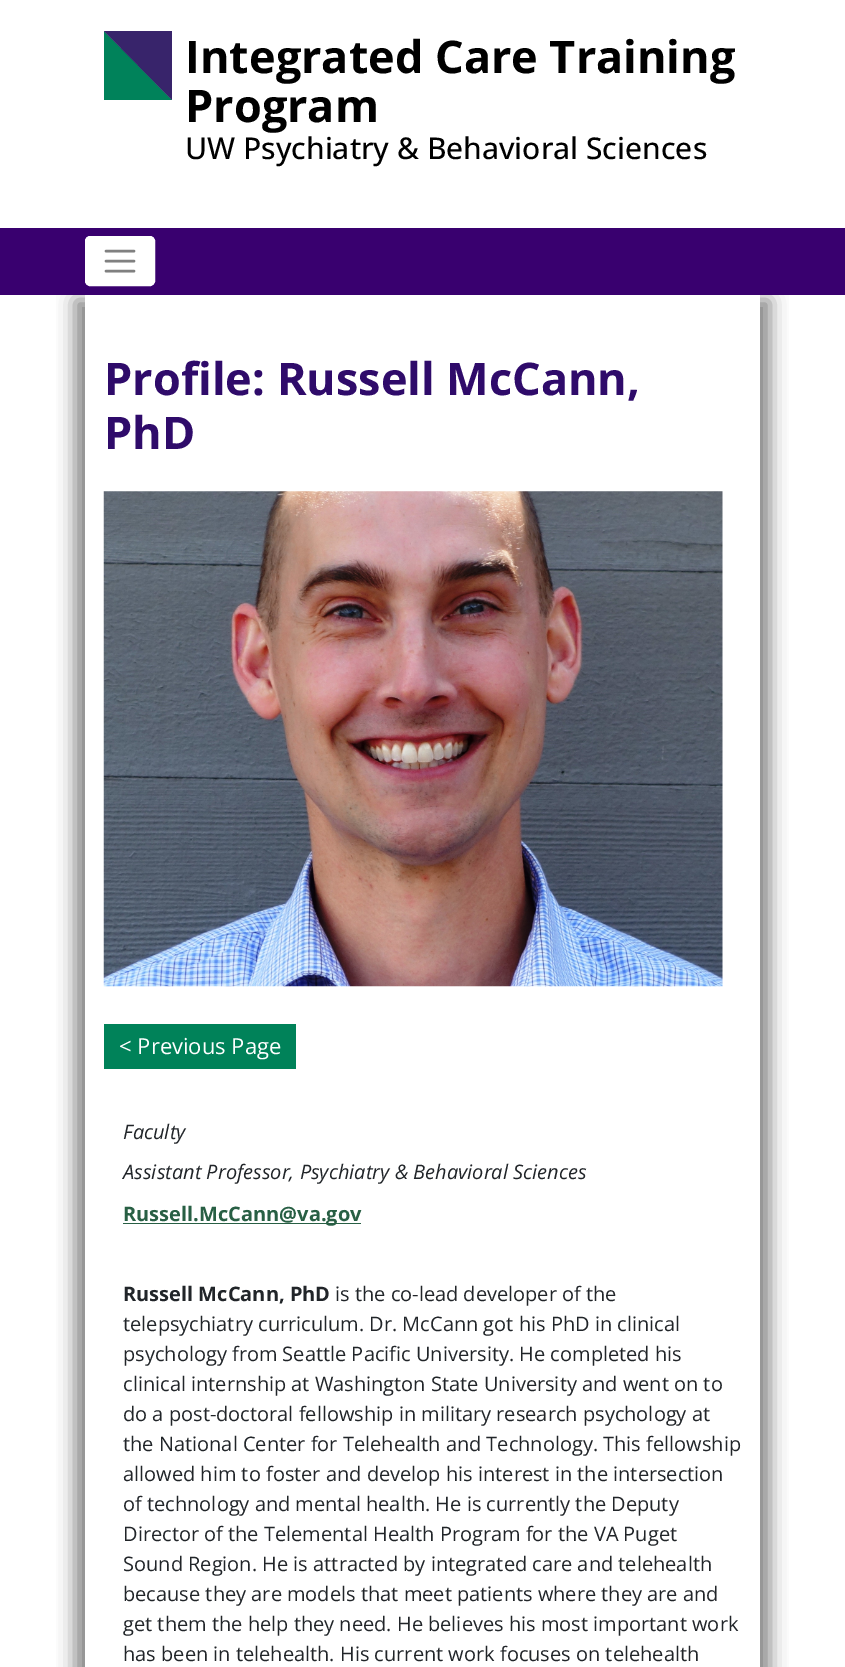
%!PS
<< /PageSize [845 1667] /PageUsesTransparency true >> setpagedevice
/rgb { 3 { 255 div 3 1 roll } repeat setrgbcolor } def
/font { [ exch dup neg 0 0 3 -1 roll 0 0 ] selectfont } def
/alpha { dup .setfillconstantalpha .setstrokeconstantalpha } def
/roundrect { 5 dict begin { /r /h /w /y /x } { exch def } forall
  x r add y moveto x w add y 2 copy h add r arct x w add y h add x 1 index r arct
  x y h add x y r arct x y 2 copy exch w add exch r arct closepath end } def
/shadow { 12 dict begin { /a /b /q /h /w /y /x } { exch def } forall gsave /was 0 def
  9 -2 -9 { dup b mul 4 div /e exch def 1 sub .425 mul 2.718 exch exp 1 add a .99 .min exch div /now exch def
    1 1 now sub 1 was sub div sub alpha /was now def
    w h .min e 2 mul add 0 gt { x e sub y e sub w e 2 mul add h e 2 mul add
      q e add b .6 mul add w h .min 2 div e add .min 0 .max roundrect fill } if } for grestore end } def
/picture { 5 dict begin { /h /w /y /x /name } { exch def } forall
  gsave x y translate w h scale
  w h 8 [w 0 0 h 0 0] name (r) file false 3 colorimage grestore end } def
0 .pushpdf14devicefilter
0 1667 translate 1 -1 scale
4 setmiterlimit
255 255 255 rgb
0 0 845 1667 rectfill
0 130 90 rgb
104 31 moveto 172 100 lineto 104 100 lineto closepath fill
56 36 107 rgb
172 31 moveto 172 100 lineto 104 31 lineto fill
gsave
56 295 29 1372 rectclip
102 102 102 rgb
75 300 665 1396 0 9.5 0.8 shadow
grestore
gsave
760 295 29 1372 rectclip
102 102 102 rgb
105 300 665 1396 0 9.5 0.8 shadow
grestore
57 0 111 rgb
0 228 845 67 rectfill
255 255 255 rgb
85.5 236.5 69 49 4.5 roundrect gsave fill grestore
stroke
128 128 128 rgb
2.5 setlinewidth
1 setlinecap
106 251 moveto 134 251 lineto 106 261 moveto 134 261 lineto 106 271 moveto 134 271 lineto stroke
(img/1.rgb) 103 491 620 496 picture
0 130 89 rgb
104 1024 192 45 rectfill
40 95 68 rgb
123 1223 238 1 rectfill
/OpenSans-Bold 45 font
0 0 0 rgb
185 73 moveto (Integrated Care Training) show
185 122 moveto (Program) show
/OpenSans-Medium 30 font
185 159 moveto (UW Psychiatry & Behavioral Sciences) show
/OpenSans-Bold 45 font
47 11 106 rgb
104 395 moveto (Profile: Russell McCann,) show
104 449 moveto (PhD) show
/OpenSans-Regular 22 font
255 255 255 rgb
119 1054 moveto (< Previous Page) show
/OpenSans-Italic 20 font
33 37 41 rgb
123 1139 moveto (Faculty) show
123 1179 moveto (Assistant Professor, Psychiatry & Behavioral Sciences) show
/OpenSans-Bold 20 font
40 95 68 rgb
123 1221 moveto (Russell.McCann@va.gov) show
33 37 41 rgb
123 1301 moveto (Russell McCann, PhD) show
/OpenSans-Regular 20 font
[
  [(is the co-lead developer of the) 335 1301]
  [(telepsychiatry curriculum. Dr. McCann got his PhD in clinical) 123 1331]
  [(psychology from Seattle Pacific University. He completed his) 123 1361]
  [(clinical internship at Washington State University and went on to) 123 1391]
  [(do a post-doctoral fellowship in military research psychology at) 123 1421]
  [(the National Center for Telehealth and Technology. This fellowship) 123 1451]
  [(allowed him to foster and develop his interest in the intersection) 123 1481]
  [(of technology and mental health. He is currently the Deputy) 123 1511]
  [(Director of the Telemental Health Program for the VA Puget) 123 1541]
  [(Sound Region. He is attracted by integrated care and telehealth) 123 1571]
  [(because they are models that meet patients where they are and) 123 1601]
  [(get them the help they need. He believes his most important work) 123 1631]
  [(has been in telehealth. His current work focuses on telehealth) 123 1661]
] { aload pop moveto show } forall
.poppdf14devicefilter showpage
